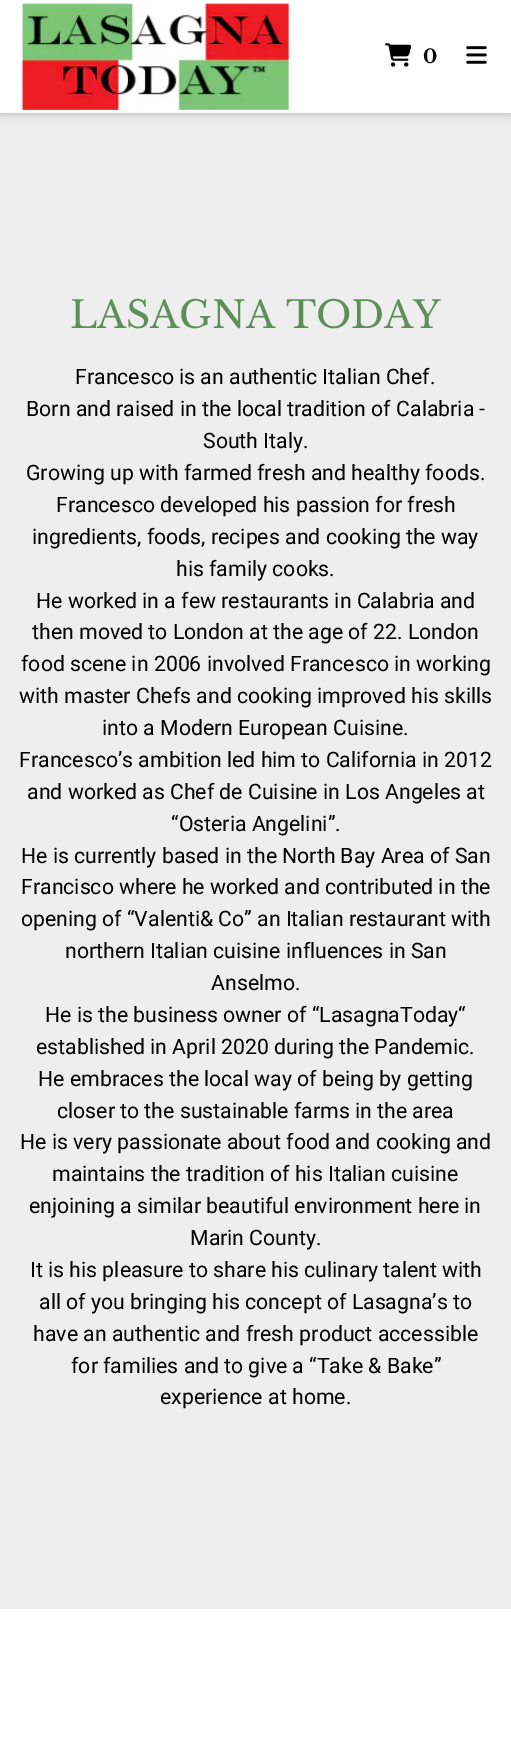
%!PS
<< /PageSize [511 1745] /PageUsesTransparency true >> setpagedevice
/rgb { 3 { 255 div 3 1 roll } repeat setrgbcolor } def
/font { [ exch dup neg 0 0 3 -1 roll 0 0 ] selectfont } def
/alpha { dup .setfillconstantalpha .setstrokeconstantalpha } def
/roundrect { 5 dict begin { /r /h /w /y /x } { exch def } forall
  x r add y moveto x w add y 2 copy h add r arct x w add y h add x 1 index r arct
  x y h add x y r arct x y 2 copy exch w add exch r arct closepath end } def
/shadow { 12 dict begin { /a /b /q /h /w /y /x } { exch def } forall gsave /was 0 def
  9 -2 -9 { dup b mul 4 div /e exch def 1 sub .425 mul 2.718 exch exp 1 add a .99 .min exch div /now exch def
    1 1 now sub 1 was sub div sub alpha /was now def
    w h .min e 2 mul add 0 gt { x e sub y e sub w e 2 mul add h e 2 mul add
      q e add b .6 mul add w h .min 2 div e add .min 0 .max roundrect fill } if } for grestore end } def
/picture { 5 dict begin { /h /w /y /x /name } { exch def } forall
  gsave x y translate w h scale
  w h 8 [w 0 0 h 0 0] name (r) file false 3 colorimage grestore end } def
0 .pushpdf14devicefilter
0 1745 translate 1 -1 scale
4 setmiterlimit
255 255 255 rgb
0 0 511 1745 rectfill
238 238 238 rgb
0 113 511 1496 rectfill
32 33 36 rgb
0 1 511 113 0 4 0.28 shadow
255 255 255 rgb
0 0 511 113 rectfill
(img/1.rgb) 21 3 268 107 picture
(img/2.rgb) 385 43 27 24 picture
(img/3.rgb) 466 46 21 18 picture
/LibreBaskerville-Bold 19 font
0 0 0 rgb
423 63 moveto (0) show
/LibreBaskerville-Regular 37.5 font
93 144 89 rgb
70 328 moveto (LASAGNA TODAY) show
/Roboto-Regular 21.25 font
0 0 0 rgb
[
  [(Francesco is an authentic Italian Chef.) 75 384]
  [(Born and raised in the local tradition of Calabria -) 26 416]
  [(South Italy.) 203 448]
  [(Growing up with farmed fresh and healthy foods.) 26 480]
  [(Francesco developed his passion for fresh) 56 512]
  [(ingredients, foods, recipes and cooking the way) 32 544]
  [(his family cooks.) 176 576]
  [(He worked in a few restaurants in Calabria and) 36 608]
  [(then moved to London at the age of 22. London) 32 639]
  [(food scene in 2006 involved Francesco in working) 21 671]
  [(with master Chefs and cooking improved his skills) 19 703]
  [(into a Modern European Cuisine.) 102 735]
  [(Francesco’s ambition led him to California in 2012) 19 767]
  [(and worked as Chef de Cuisine in Los Angeles at) 27 799]
  [(“Osteria Angelini”.) 171 831]
  [(He is currently based in the North Bay Area of San) 21 863]
  [(Francisco where he worked and contributed in the) 21 894]
  [(opening of “Valenti& Co” an Italian restaurant with) 21 926]
  [(northern Italian cuisine influences in San) 65 958]
  [(Anselmo.) 211 990]
  [(He is the business owner of “LasagnaToday“) 45 1022]
  [(established in April 2020 during the Pandemic.) 36 1054]
  [(He embraces the local way of being by getting) 38 1086]
  [(closer to the sustainable farms in the area) 57 1118]
  [(He is very passionate about food and cooking and) 20 1149]
  [(maintains the tradition of his Italian cuisine) 52 1181]
  [(enjoining a similar beautiful environment here in) 29 1213]
  [(Marin County.) 190 1245]
  [(It is his pleasure to share his culinary talent with) 30 1277]
  [(all of you bringing his concept of Lasagna’s to) 39 1309]
  [(have an authentic and fresh product accessible) 33 1341]
  [(for families and to give a “Take & Bake”) 71 1373]
  [(experience at home.) 160 1404]
] { aload pop moveto show } forall
.poppdf14devicefilter showpage
